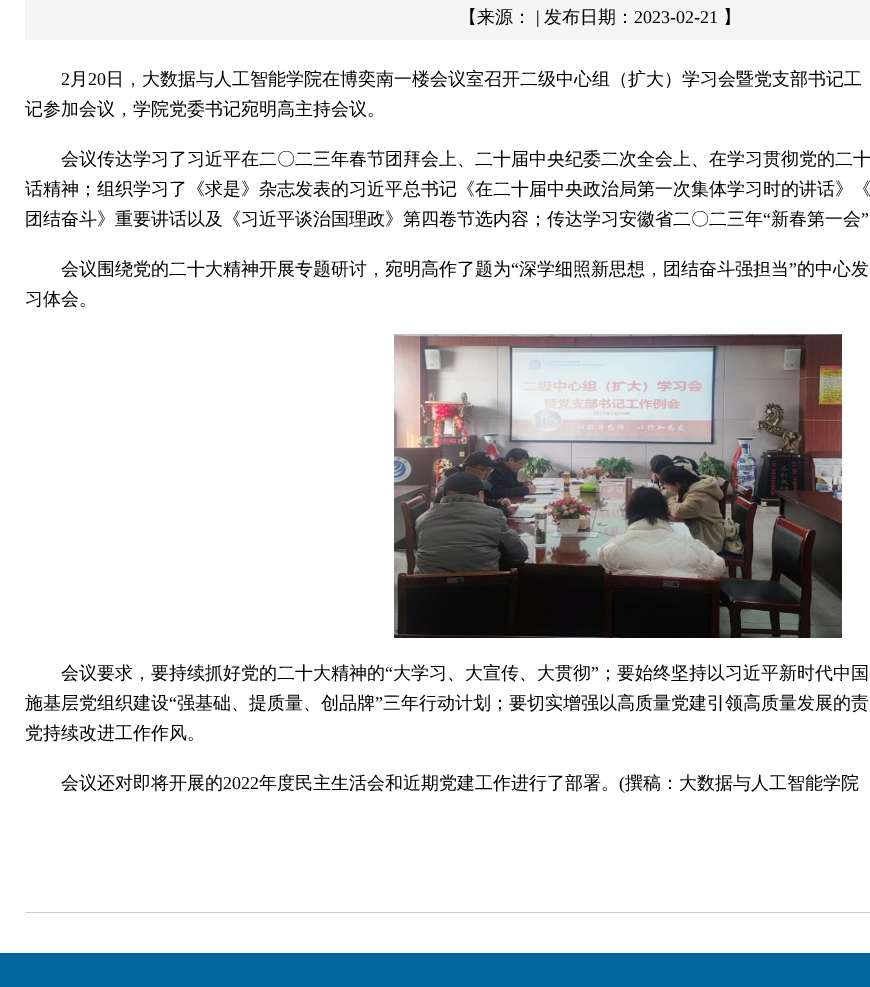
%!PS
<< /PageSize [870 987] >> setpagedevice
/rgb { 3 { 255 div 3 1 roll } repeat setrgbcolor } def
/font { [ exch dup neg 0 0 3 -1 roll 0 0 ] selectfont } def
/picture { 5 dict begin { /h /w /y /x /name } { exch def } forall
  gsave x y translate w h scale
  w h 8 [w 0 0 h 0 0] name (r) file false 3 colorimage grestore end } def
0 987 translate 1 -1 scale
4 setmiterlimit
255 255 255 rgb
0 0 870 987 rectfill
245 245 245 rgb
25 0 845 40 rectfill
(img/1.rgb) 394 334 448 304 picture
204 204 204 rgb
25 912 845 1 rectfill
0 102 153 rgb
0 953 870 34 rectfill
/WenQuanYiZenHei-Medium 18 font
0 0 0 rgb
459 23 moveto (【来源：) show
/LiberationSerif-Regular 18 font
536 23 moveto (|) show
/WenQuanYiZenHei-Medium 18 font
544 23 moveto (发布日期：) show
/LiberationSerif-Regular 18 font
634 23 moveto (2023-02-21) show
/WenQuanYiZenHei-Medium 18 font
723 23 moveto (】) show
/LiberationSerif-Regular 18 font
61 85 moveto (2) show
/WenQuanYiZenHei-Medium 18 font
70 85 moveto (月) show
/LiberationSerif-Regular 18 font
88 85 moveto (20) show
/WenQuanYiZenHei-Medium 18 font
[
  [(日，大数据与人工智能学院在博奕南一楼会议室召开二级中心组（扩大）学习会暨党支部书记工) 106 85]
  [(记参加会议，学院党委书记宛明高主持会议。) 25 115]
  [(会议传达学习了习近平在二〇二三年春节团拜会上、二十届中央纪委二次全会上、在学习贯彻党的二十) 61 165]
  [(话精神；组织学习了《求是》杂志发表的习近平总书记《在二十届中央政治局第一次集体学习时的讲话》《) 25 195]
  [(团结奋斗》重要讲话以及《习近平谈治国理政》第四卷节选内容；传达学习安徽省二〇二三年) 25 225]
] { aload pop moveto show } forall
/LiberationSerif-Regular 18 font
763 225 moveto (“) show
/WenQuanYiZenHei-Medium 18 font
771 225 moveto (新春第一会) show
/LiberationSerif-Regular 18 font
861 225 moveto (”) show
/WenQuanYiZenHei-Medium 18 font
61 275 moveto (会议围绕党的二十大精神开展专题研讨，宛明高作了题为) show
/LiberationSerif-Regular 18 font
511 275 moveto (“) show
/WenQuanYiZenHei-Medium 18 font
519 275 moveto (深学细照新思想，团结奋斗强担当) show
/LiberationSerif-Regular 18 font
789 275 moveto (”) show
/WenQuanYiZenHei-Medium 18 font
[
  [(的中心发) 797 275]
  [(习体会。) 25 305]
  [(会议要求，要持续抓好党的二十大精神的) 61 679]
] { aload pop moveto show } forall
/LiberationSerif-Regular 18 font
385 679 moveto (“) show
/WenQuanYiZenHei-Medium 18 font
393 679 moveto (大学习、大宣传、大贯彻) show
/LiberationSerif-Regular 18 font
591 679 moveto (”) show
/WenQuanYiZenHei-Medium 18 font
599 679 moveto (；要始终坚持以习近平新时代中国) show
25 709 moveto (施基层党组织建设) show
/LiberationSerif-Regular 18 font
169 709 moveto (“) show
/WenQuanYiZenHei-Medium 18 font
177 709 moveto (强基础、提质量、创品牌) show
/LiberationSerif-Regular 18 font
375 709 moveto (”) show
/WenQuanYiZenHei-Medium 18 font
[
  [(三年行动计划；要切实增强以高质量党建引领高质量发展的责) 383 709]
  [(党持续改进工作作风。) 25 739]
  [(会议还对即将开展的) 61 789]
] { aload pop moveto show } forall
/LiberationSerif-Regular 18 font
223 789 moveto (2022) show
/WenQuanYiZenHei-Medium 18 font
259 789 moveto (年度民主生活会和近期党建工作进行了部署。) show
/LiberationSerif-Regular 18 font
619 789 moveto (\() show
/WenQuanYiZenHei-Medium 18 font
625 789 moveto -1 0 32 (撰稿：大数据与人工智能学院) widthshow
showpage
